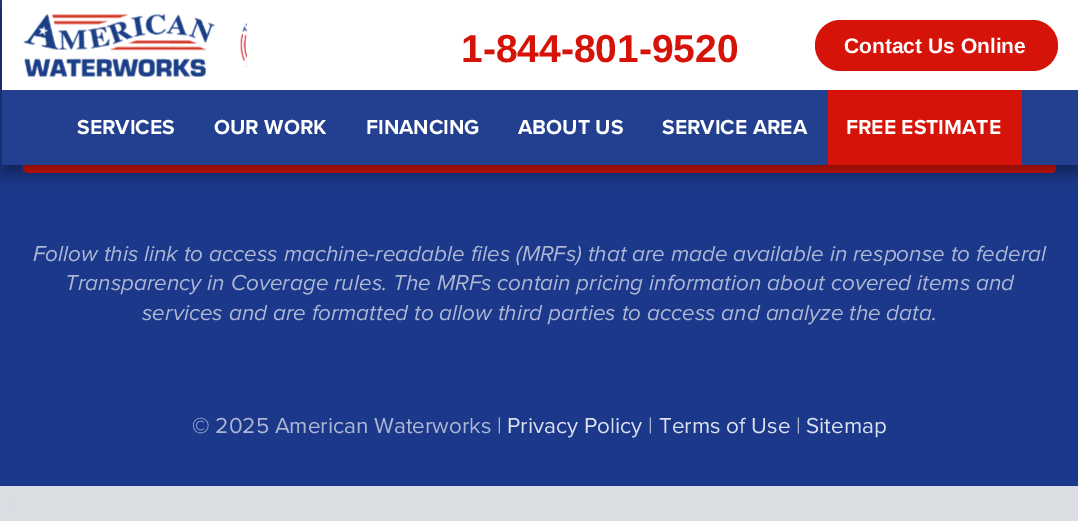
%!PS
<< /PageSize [1078 521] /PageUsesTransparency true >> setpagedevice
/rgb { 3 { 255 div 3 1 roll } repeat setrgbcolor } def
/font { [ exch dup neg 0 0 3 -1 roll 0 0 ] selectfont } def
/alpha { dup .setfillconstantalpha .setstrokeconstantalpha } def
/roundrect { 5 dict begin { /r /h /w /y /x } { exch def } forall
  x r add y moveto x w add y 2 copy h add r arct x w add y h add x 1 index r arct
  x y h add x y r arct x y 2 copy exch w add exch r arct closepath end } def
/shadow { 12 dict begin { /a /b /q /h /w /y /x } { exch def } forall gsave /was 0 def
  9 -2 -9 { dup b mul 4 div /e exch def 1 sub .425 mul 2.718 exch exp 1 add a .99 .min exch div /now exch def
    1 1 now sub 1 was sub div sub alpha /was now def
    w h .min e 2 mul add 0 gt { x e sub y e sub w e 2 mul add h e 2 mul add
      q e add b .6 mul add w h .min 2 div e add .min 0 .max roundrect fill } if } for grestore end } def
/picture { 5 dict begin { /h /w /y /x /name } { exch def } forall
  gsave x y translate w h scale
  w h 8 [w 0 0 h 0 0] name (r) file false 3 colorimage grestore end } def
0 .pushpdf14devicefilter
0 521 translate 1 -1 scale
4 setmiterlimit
218 221 226 rgb
0 0 1078 521 rectfill
27 56 138 rgb
0 0 1078 486 rectfill
214 19 8 rgb
23 101 1033 72 5 roundrect fill
gsave
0 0 moveto 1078 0 lineto 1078 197 lineto 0 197 lineto closepath 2 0 moveto 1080 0 lineto 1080 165 lineto 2 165 lineto closepath eoclip newpath
0 0 0 rgb
2 8 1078 165 0 7.5 0.35 shadow
grestore
34 64 143 rgb
2 90 1076 75 rectfill
255 255 255 rgb
2 0 1076 90 rectfill
(img/1.rgb) 23 13 224 64 picture
214 19 8 rgb
815 20 243 51 25.5 roundrect fill
828 90 194 75 rectfill
(img/2.rgb) 13 503 2 2 picture
/LiberationSans-Bold 39 font
461 62 moveto (1-844-801-9520) show
/LiberationSans-Bold 21 font
255 255 255 rgb
844 53 moveto (Contact Us Online) show
/ProximaNova-Bold 21 font
[
  [(SERVICES) 77 134]
  [(OUR WORK) 214 134]
  [(FINANCING) 366 134]
  [(ABOUT US) 518 134]
  [(SERVICE AREA) 662 134]
  [(FREE ESTIMATE) 846 134]
] { aload pop moveto show } forall
/ProximaNova-Italic 22.5 font
173 183 211 rgb
[
  [(Follow this link to access machine-readable files \(MRFs\) that are made available in response to federal) 33 261]
  [(Transparency in Coverage rules. The MRFs contain pricing information about covered items and) 65 290]
  [(services and are formatted to allow third parties to access and analyze the data.) 142 320]
] { aload pop moveto show } forall
/ProximaNova-Regular 22.5 font
192 433 moveto (© 2025 American Waterworks |) show
220 225 239 rgb
507 433 moveto (Privacy Policy) show
173 183 211 rgb
648 433 moveto (|) show
220 225 239 rgb
659 433 moveto (Terms of Use) show
173 183 211 rgb
796 433 moveto (|) show
220 225 239 rgb
806 433 moveto (Sitemap) show
.poppdf14devicefilter showpage
